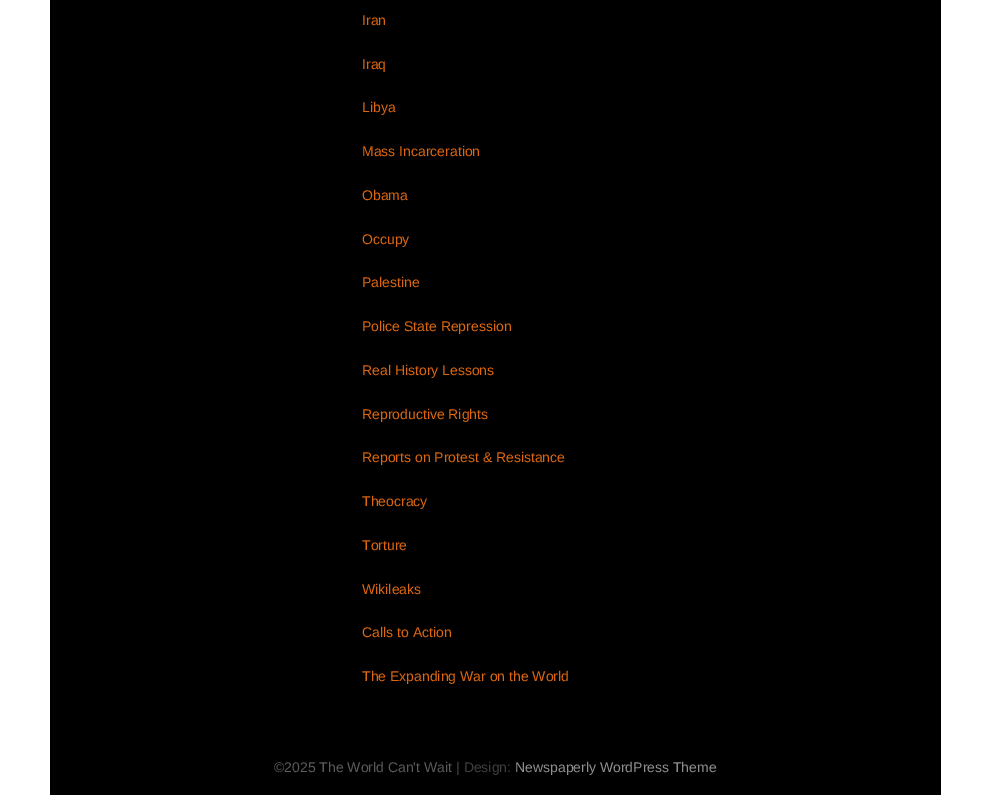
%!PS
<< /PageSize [990 795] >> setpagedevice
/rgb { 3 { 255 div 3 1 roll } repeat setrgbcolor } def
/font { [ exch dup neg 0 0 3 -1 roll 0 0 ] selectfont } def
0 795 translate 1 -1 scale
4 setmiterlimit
255 255 255 rgb
0 0 990 795 rectfill
0 0 0 rgb
50 0 891 795 rectfill
/LiberationSans-Regular 14 font
221 103 16 rgb
[
  [(Iran) 362 25]
  [(Iraq) 362 69]
  [(Libya) 362 112]
  [(Mass Incarceration) 362 156]
  [(Obama) 362 200]
  [(Occupy) 362 244]
  [(Palestine) 362 287]
  [(Police State Repression) 362 331]
  [(Real History Lessons) 362 375]
  [(Reproductive Rights) 362 419]
  [(Reports on Protest & Resistance) 362 462]
  [(Theocracy) 362 506]
  [(Torture) 362 550]
  [(Wikileaks) 362 594]
  [(Calls to Action) 362 637]
  [(The Expanding War on the World) 362 681]
] { aload pop moveto show } forall
91 91 91 rgb
274 772 moveto (©2025 The World Can't Wait) show
64 64 64 rgb
456 772 moveto (| Design:) show
143 143 143 rgb
515 772 moveto (Newspaperly WordPress Theme) show
showpage
